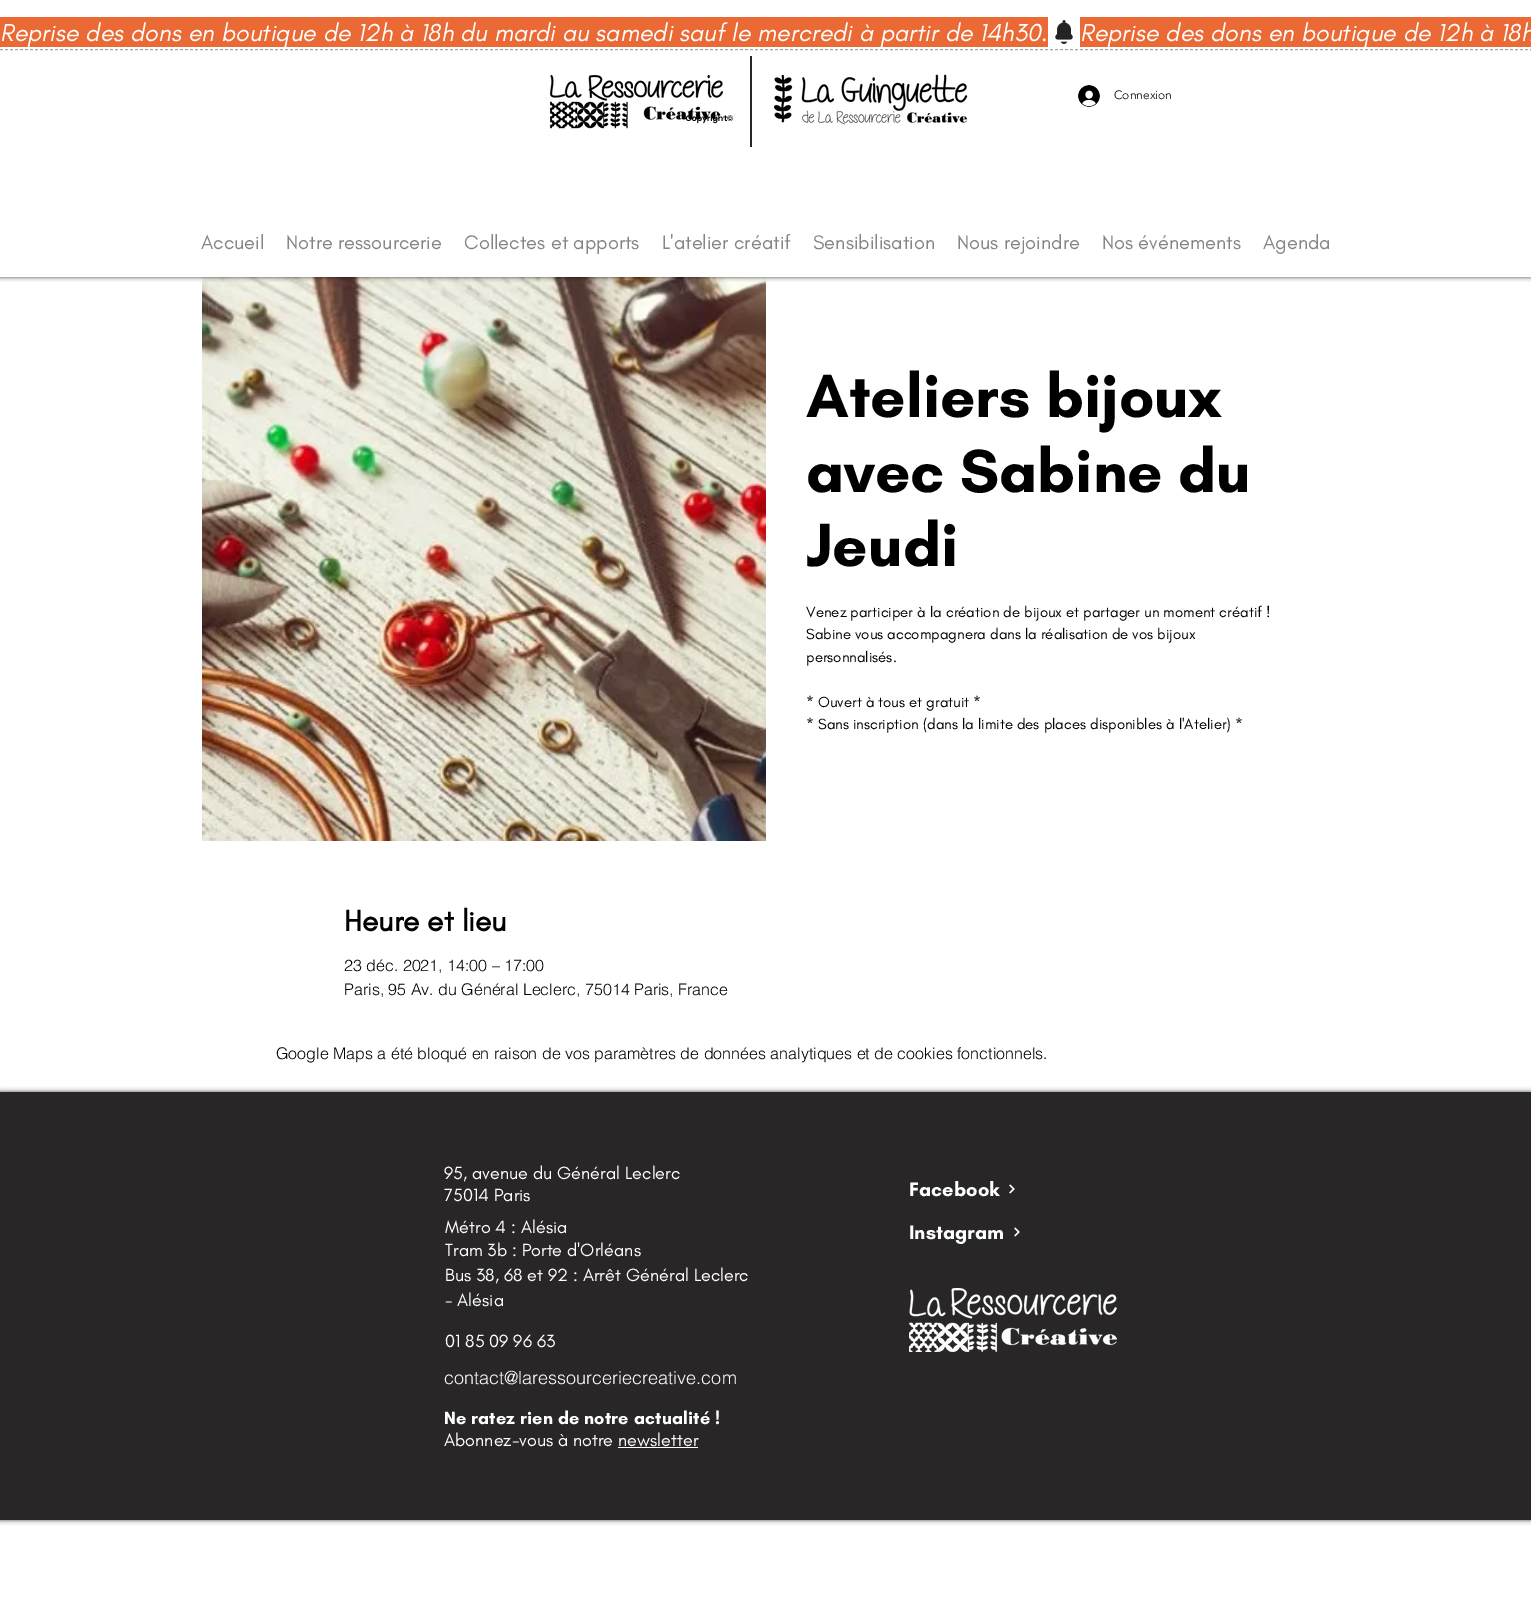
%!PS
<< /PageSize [1531 1615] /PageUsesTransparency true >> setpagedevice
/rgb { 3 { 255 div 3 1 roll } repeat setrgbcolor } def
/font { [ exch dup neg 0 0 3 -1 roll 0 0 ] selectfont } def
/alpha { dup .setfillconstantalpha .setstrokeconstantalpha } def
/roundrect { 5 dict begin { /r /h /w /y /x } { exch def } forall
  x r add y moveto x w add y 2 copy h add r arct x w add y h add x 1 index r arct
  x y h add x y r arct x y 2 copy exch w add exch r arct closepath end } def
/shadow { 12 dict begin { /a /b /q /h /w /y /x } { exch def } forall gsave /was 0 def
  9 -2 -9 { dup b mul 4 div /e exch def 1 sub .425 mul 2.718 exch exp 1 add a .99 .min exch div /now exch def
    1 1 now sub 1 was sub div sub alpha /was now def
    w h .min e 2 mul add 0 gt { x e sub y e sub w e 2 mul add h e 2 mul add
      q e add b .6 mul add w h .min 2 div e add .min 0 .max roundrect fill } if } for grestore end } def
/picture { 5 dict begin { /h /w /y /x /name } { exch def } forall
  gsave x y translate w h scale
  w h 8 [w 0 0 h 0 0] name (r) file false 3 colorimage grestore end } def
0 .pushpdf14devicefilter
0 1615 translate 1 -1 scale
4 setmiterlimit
255 255 255 rgb
0 0 1531 1615 rectfill
(img/5.rgb) 202 277 564 564 picture
gsave
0 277 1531 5 rectclip
0 0 0 rgb
0 0 1531 277 0 2.5 0.7 shadow
grestore
234 105 52 rgb
0 17 1048 30 rectfill
(img/1.rgb) 1055 20 18 24 picture
1080 17 451 30 rectfill
166 166 166 rgb
[3 2] 0 setdash
-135 49.5 moveto 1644 49.5 lineto stroke
40 38 38 rgb
750 56 2 91 rectfill
(img/3.rgb) 774 74 194 51 picture
(img/4.rgb) 1078 85 22 22 picture
0 0 0 rgb
0 1092 1531 428 0 2.5 0.7 shadow
40 38 38 rgb
0 1092 1531 428 rectfill
255 255 255 rgb
618 1447 80 1 rectfill
(img/6.rgb) 1009 1184 6 10 picture
(img/6.rgb) 1014 1227 6 10 picture
(img/7.rgb) 909 1288 208 64 picture
/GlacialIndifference-Italic 25 font
0 41 moveto (Reprise des dons en boutique de 12h à 18h du mardi au samedi sauf le mercredi à partir de 14h30.) show
1080 41 moveto (Reprise des dons en boutique de 12h à 18h) show
/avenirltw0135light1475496-Light 12 font
0 0 0 rgb
1114 99 moveto (Connexion) show
/Poppins-SemiBold 8 font
686 121 moveto (Copyright©) show
(img/2.rgb) 549 74 175 55 picture
/GlacialIndifference-Regular 20 font
133 133 133 rgb
[
  [(Accueil) 201 249]
  [(Notre ressourcerie) 286 249]
  [(Collectes et apports) 464 249]
  [(L'atelier créatif) 662 249]
  [(Sensibilisation) 813 249]
  [(Nous rejoindre) 957 249]
  [(Nos événements) 1102 249]
  [(Agenda) 1263 249]
] { aload pop moveto show } forall
/GlacialIndifference-Bold 62 font
0 0 0 rgb
[
  [(Ateliers bijoux) 806 417]
  [(avec Sabine du) 806 492]
  [(Jeudi) 806 566]
] { aload pop moveto show } forall
/GlacialIndifference-Regular 15 font
[
  [(Venez participer à la création de bijoux et partager un moment créatif !) 806 617]
  [(Sabine vous accompagnera dans la réalisation de vos bijoux) 806 639]
  [(personnalisés.) 806 662]
  [(* Ouvert à tous et gratuit *) 806 707]
  [(* Sans inscription \(dans la limite des places disponibles à l'Atelier\) *) 806 729]
] { aload pop moveto show } forall
/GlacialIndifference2-Bold 30 font
344 931 moveto (Heure et lieu) show
/helvetica-Light 16 font
[
  [(23 déc. 2021, 14:00 – 17:00) 344 971]
  [(Paris, 95 Av. du Général Leclerc, 75014 Paris, France) 344 995]
  [(Google Maps a été bloqué en raison de vos paramètres de données analytiques et de cookies fonctionnels.) 276 1059]
] { aload pop moveto show } forall
/GlacialIndifference-Regular 18 font
255 255 255 rgb
[
  [(95, avenue du Général Leclerc) 444 1179]
  [(75014 Paris) 444 1201]
  [(Métro 4 : Alésia) 445 1233]
  [(Tram 3b : Porte d'Orléans) 445 1256]
  [(Bus 38, 68 et 92 : Arrêt Général Leclerc) 445 1281]
  [(- Alésia) 445 1306]
  [(01 85 09 96 63) 445 1347]
] { aload pop moveto show } forall
/helvetica-Light 18 font
444 1384 moveto (contact@laressourceriecreative.com) show
/GlacialIndifference-Bold 18 font
444 1424 moveto 0.2 0 (Ne ratez rien de notre actualité !) ashow
/GlacialIndifference-Regular 18 font
444 1446 moveto (Abonnez-vous à notre newsletter) show
/GlacialIndifference-Bold 20 font
909 1196 moveto (Facebook) show
909 1239 moveto (Instagram) show
.poppdf14devicefilter showpage
